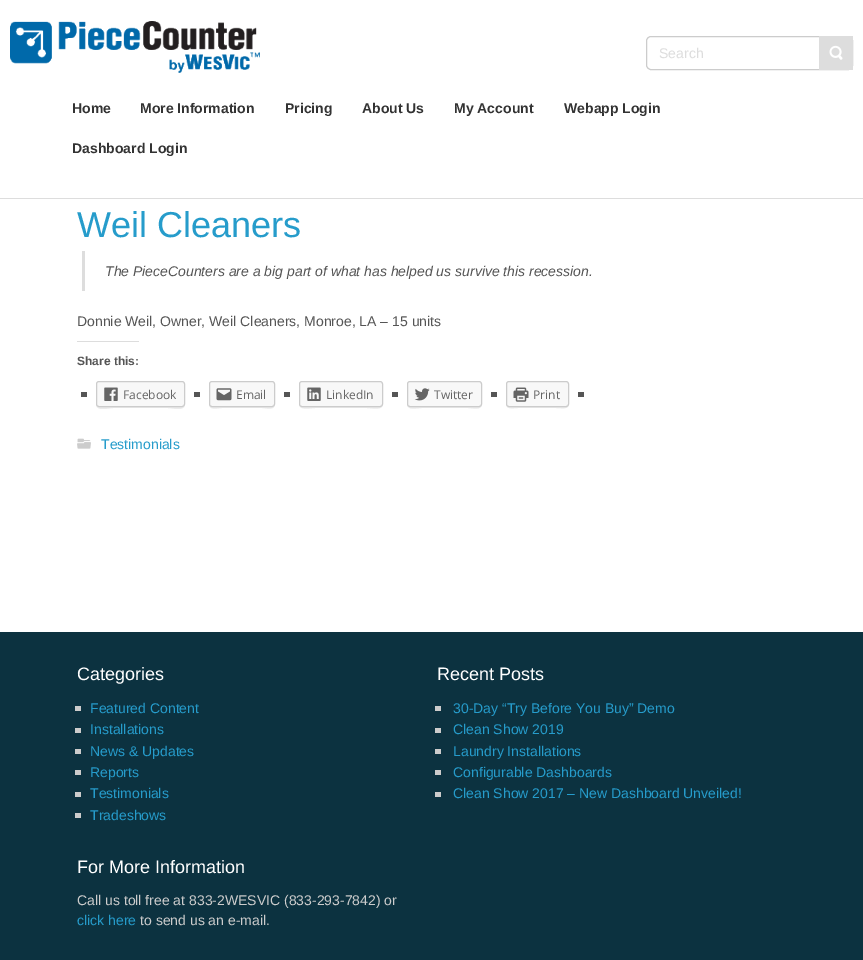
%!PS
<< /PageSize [863 960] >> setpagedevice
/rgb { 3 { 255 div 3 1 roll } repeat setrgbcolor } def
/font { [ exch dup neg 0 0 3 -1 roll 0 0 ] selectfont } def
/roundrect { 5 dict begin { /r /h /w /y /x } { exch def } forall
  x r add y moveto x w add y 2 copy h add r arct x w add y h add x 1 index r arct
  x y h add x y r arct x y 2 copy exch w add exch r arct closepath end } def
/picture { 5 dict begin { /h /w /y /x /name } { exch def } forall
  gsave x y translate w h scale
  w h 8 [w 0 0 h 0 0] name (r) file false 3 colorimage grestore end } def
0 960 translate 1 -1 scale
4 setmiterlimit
255 255 255 rgb
0 0 863 960 rectfill
221 221 221 rgb
0 198 863 1 rectfill
(img/1.rgb) 10 21 250 52 picture
204 204 204 rgb
646.5 36.5 206 33 4.5 roundrect stroke
221 221 221 rgb
819 36 34 34 rectfill
(img/2.rgb) 829 45 14 15 picture
[
  [82 251 3 40 221 221 221]
  [77 341 62 1 221 221 221]
  [81 392 6 5 85 85 85]
] { aload pop rgb rectfill } forall
235 235 235 rgb
96 404 moveto 96 412 109 408 113 408 curveto 168 408 lineto 172 408 185 412 185 404 curveto 185 406 184 407 182 407 curveto 99 407 lineto 97 407 96 406 96 404 curveto closepath fill
248 248 248 rgb
96.5 381.5 88 25 2.5 roundrect gsave fill grestore
204 204 204 rgb
stroke
(img/3.rgb) 104 387 14 14 picture
85 85 85 rgb
194 392 6 5 rectfill
235 235 235 rgb
209 404 moveto 209 411 218 408 222 408 curveto 262 408 lineto 266 408 275 411 275 404 curveto 275 406 274 407 272 407 curveto 212 407 lineto 210 407 209 406 209 404 curveto closepath fill
248 248 248 rgb
209.5 381.5 65 25 2.5 roundrect gsave fill grestore
204 204 204 rgb
stroke
(img/4.rgb) 216 388 16 13 picture
85 85 85 rgb
284 392 6 5 rectfill
235 235 235 rgb
299 404 moveto 299 411 311 408 315 408 curveto 367 408 lineto 371 408 383 411 383 404 curveto 383 406 382 407 380 407 curveto 302 407 lineto 300 407 299 406 299 404 curveto closepath fill
248 248 248 rgb
299.5 381.5 83 25 2.5 roundrect gsave fill grestore
204 204 204 rgb
stroke
(img/5.rgb) 307 387 14 14 picture
85 85 85 rgb
392 392 6 5 rectfill
235 235 235 rgb
407 404 moveto 407 411 417 408 422 408 curveto 468 408 lineto 472 408 482 411 482 404 curveto 482 406 481 407 479 407 curveto 410 407 lineto 408 407 407 406 407 404 curveto closepath fill
248 248 248 rgb
407.5 381.5 74 25 2.5 roundrect gsave fill grestore
204 204 204 rgb
stroke
(img/6.rgb) 414 388 16 13 picture
85 85 85 rgb
491 392 6 5 rectfill
235 235 235 rgb
506 404 moveto 506 410 514 408 518 408 curveto 556 408 lineto 561 408 569 410 569 404 curveto 569 406 568 407 566 407 curveto 509 407 lineto 507 407 506 406 506 404 curveto closepath fill
248 248 248 rgb
506.5 381.5 62 25 2.5 roundrect gsave fill grestore
204 204 204 rgb
stroke
(img/7.rgb) 513 387 16 15 picture
85 85 85 rgb
578 392 6 5 rectfill
(img/8.rgb) 77 438 14 11 picture
[
  [0 632 863 328 12 50 64]
  [75 706 6 5 204 204 204]
  [75 728 6 5 204 204 204]
  [75 749 6 5 204 204 204]
  [75 770 6 5 204 204 204]
  [75 792 6 5 204 204 204]
  [75 813 6 5 204 204 204]
  [435 706 6 5 204 204 204]
  [435 728 6 5 204 204 204]
  [435 749 6 5 204 204 204]
  [435 770 6 5 204 204 204]
  [435 792 6 5 204 204 204]
] { aload pop rgb rectfill } forall
/LiberationSans-Regular 14 font
221 221 221 rgb
659 58 moveto (Search) show
/LiberationSans-Bold 14 font
51 51 51 rgb
[
  [(Home) 72 113]
  [(More Information) 140 113]
  [(Pricing) 285 113]
  [(About Us) 362 113]
  [(My Account) 454 113]
  [(Webapp Login) 564 113]
  [(Dashboard Login) 72 153]
] { aload pop moveto show } forall
/LiberationSans-Regular 36 font
38 156 203 rgb
77 237 moveto (Weil Cleaners) show
/LiberationSans-Italic 14 font
85 85 85 rgb
105 276 moveto (The PieceCounters are a big part of what has helped us survive this recession.) show
/LiberationSans-Regular 14 font
77 326 moveto (Donnie Weil, Owner, Weil Cleaners, Monroe, LA – 15 units) show
/LiberationSans-Bold 12 font
77 365 moveto (Share this:) show
/OpenSans-Regular 12 font
101 101 101 rgb
[
  [(Facebook) 123 399]
  [(Email) 236 399]
  [(LinkedIn) 326 399]
  [(Twitter) 434 399]
  [(Print) 533 399]
] { aload pop moveto show } forall
/LiberationSans-Regular 14 font
38 156 203 rgb
101 449 moveto (Testimonials) show
/LiberationSans-Regular 18 font
255 255 255 rgb
77 680 moveto (Categories) show
/LiberationSans-Regular 14 font
38 156 203 rgb
[
  [(Featured Content) 90 713]
  [(Installations) 90 734]
  [(News & Updates) 90 756]
  [(Reports) 90 777]
  [(Testimonials) 90 798]
  [(Tradeshows) 90 820]
] { aload pop moveto show } forall
/LiberationSans-Regular 18 font
255 255 255 rgb
437 680 moveto (Recent Posts) show
/LiberationSans-Regular 14 font
38 156 203 rgb
[
  [(30-Day “Try Before You Buy” Demo) 453 713]
  [(Clean Show 2019) 453 734]
  [(Laundry Installations) 453 756]
  [(Configurable Dashboards) 453 777]
  [(Clean Show 2017 – New Dashboard Unveiled!) 453 798]
] { aload pop moveto show } forall
/LiberationSans-Regular 18 font
255 255 255 rgb
77 873 moveto (For More Information) show
/LiberationSans-Regular 14 font
204 204 204 rgb
77 905 moveto (Call us toll free at 833-2WESVIC \(833-293-7842\) or) show
38 156 203 rgb
77 925 moveto (click here) show
204 204 204 rgb
140 925 moveto (to send us an e-mail.) show
showpage
